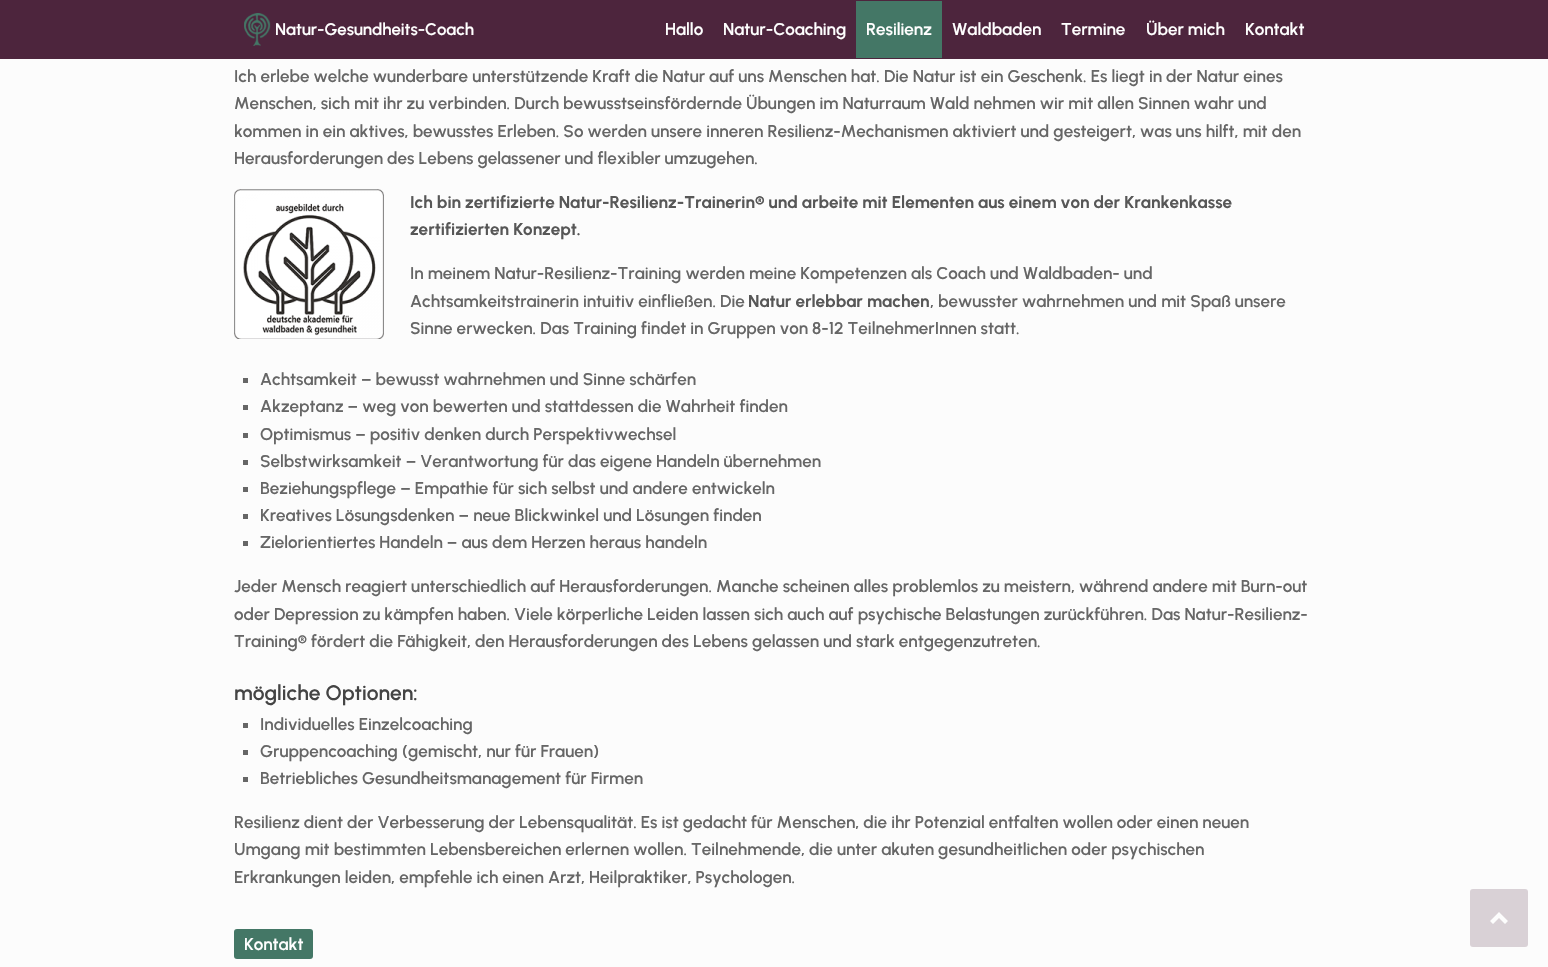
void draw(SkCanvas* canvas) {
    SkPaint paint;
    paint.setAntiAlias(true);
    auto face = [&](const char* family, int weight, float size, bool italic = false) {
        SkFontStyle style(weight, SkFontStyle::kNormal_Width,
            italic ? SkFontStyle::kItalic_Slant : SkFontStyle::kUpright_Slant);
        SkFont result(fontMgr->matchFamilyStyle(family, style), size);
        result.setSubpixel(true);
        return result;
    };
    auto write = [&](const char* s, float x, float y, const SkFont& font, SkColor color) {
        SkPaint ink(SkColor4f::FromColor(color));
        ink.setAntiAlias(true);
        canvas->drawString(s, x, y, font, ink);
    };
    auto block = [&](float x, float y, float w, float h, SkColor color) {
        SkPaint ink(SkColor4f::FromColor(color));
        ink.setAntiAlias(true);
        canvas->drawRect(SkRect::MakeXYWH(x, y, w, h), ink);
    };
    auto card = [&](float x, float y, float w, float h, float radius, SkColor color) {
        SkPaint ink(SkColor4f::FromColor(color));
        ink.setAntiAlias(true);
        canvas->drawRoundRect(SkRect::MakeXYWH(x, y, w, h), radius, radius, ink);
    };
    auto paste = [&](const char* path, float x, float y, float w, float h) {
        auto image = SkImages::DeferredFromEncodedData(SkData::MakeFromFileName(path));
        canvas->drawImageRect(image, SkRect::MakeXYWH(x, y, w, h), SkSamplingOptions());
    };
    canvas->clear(SkColorSetRGB(252, 252, 252));
    block(0, 0, 1548, 59, SkColorSetRGB(77, 37, 61));
    paste("pic1.png", 244, 13, 27, 33);
    auto kFont1 = face("Urbanist", 600, 16.75f);
    write("Natur-Gesundheits-Coach", 275, 35, kFont1, SK_ColorWHITE);
    auto kFont2 = face("Urbanist", 600, 17);
    write("Hallo", 665, 35, kFont2, SK_ColorWHITE);
    write("Natur-Coaching", 723, 35, kFont2, SK_ColorWHITE);
    block(856, 1, 86, 57, SkColorSetRGB(68, 119, 102));
    write("Resilienz", 866, 35, kFont2, SK_ColorWHITE);
    write("Waldbaden", 952, 35, kFont2, SK_ColorWHITE);
    write("Termine", 1061, 35, kFont2, SK_ColorWHITE);
    write("Über mich", 1146, 35, kFont2, SK_ColorWHITE);
    write("Kontakt", 1245, 35, kFont2, SK_ColorWHITE);
    write("Ich erlebe welche wunderbare unterstützende Kraft die Natur auf uns Menschen hat. Die Natur ist ein Geschenk. Es liegt in der Natur eines", 234, 82, kFont2, SkColorSetRGB(102, 102, 102));
    write("Menschen, sich mit ihr zu verbinden. Durch bewusstseinsfördernde Übungen im Naturraum Wald nehmen wir mit allen Sinnen wahr und", 234, 109, kFont2, SkColorSetRGB(102, 102, 102));
    write("kommen in ein aktives, bewusstes Erleben. So werden unsere inneren Resilienz-Mechanismen aktiviert und gesteigert, was uns hilft, mit den", 234, 137, kFont2, SkColorSetRGB(102, 102, 102));
    write("Herausforderungen des Lebens gelassener und flexibler umzugehen.", 234, 164, kFont2, SkColorSetRGB(102, 102, 102));
    paste("pic2.png", 234, 189, 150, 150);
    auto kFont3 = face("Urbanist", 700, 17);
    write("Ich bin zertifizierte Natur-Resilienz-Trainerin® und arbeite mit Elementen aus einem von der Krankenkasse", 410, 208, kFont3, SkColorSetRGB(87, 87, 87));
    write("zertifizierten Konzept.", 410, 235, kFont3, SkColorSetRGB(87, 87, 87));
    write("In meinem Natur-Resilienz-Training werden meine Kompetenzen als Coach und Waldbaden- und", 410, 279, kFont2, SkColorSetRGB(102, 102, 102));
    write("Achtsamkeitstrainerin intuitiv einfließen. Die", 410, 307, kFont2, SkColorSetRGB(102, 102, 102));
    write("Natur erlebbar machen", 748, 307, kFont3, SkColorSetRGB(87, 87, 87));
    write(", bewusster wahrnehmen und mit Spaß unsere", 930, 307, kFont2, SkColorSetRGB(102, 102, 102));
    write("Sinne erwecken. Das Training findet in Gruppen von 8-12 TeilnehmerInnen statt.", 410, 334, kFont2, SkColorSetRGB(102, 102, 102));
    block(243, 378, 5, 5, SkColorSetRGB(102, 102, 102));
    write("Achtsamkeit – bewusst wahrnehmen und Sinne schärfen", 260, 385, kFont2, SkColorSetRGB(102, 102, 102));
    block(243, 405, 5, 5, SkColorSetRGB(102, 102, 102));
    write("Akzeptanz – weg von bewerten und stattdessen die Wahrheit finden", 260, 412, kFont2, SkColorSetRGB(102, 102, 102));
    block(243, 433, 5, 5, SkColorSetRGB(102, 102, 102));
    write("Optimismus – positiv denken durch Perspektivwechsel", 260, 440, kFont2, SkColorSetRGB(102, 102, 102));
    block(243, 460, 5, 5, SkColorSetRGB(102, 102, 102));
    write("Selbstwirksamkeit – Verantwortung für das eigene Handeln übernehmen", 260, 467, kFont2, SkColorSetRGB(102, 102, 102));
    block(243, 487, 5, 5, SkColorSetRGB(102, 102, 102));
    write("Beziehungspflege – Empathie für sich selbst und andere entwickeln", 260, 494, kFont2, SkColorSetRGB(102, 102, 102));
    block(243, 514, 5, 5, SkColorSetRGB(102, 102, 102));
    write("Kreatives Lösungsdenken – neue Blickwinkel und Lösungen finden", 260, 521, kFont2, SkColorSetRGB(102, 102, 102));
    block(243, 541, 5, 5, SkColorSetRGB(102, 102, 102));
    write("Zielorientiertes Handeln – aus dem Herzen heraus handeln", 260, 548, kFont2, SkColorSetRGB(102, 102, 102));
    write("Jeder Mensch reagiert unterschiedlich auf Herausforderungen. Manche scheinen alles problemlos zu meistern, während andere mit Burn-out", 234, 592, kFont2, SkColorSetRGB(102, 102, 102));
    write("oder Depression zu kämpfen haben. Viele körperliche Leiden lassen sich auch auf psychische Belastungen zurückführen. Das Natur-Resilienz-", 234, 620, kFont2, SkColorSetRGB(102, 102, 102));
    write("Training® fördert die Fähigkeit, den Herausforderungen des Lebens gelassen und stark entgegenzutreten.", 234, 647, kFont2, SkColorSetRGB(102, 102, 102));
    auto kFont4 = face("Urbanist", 600, 21);
    write("mögliche Optionen:", 234, 700, kFont4, SkColorSetRGB(68, 68, 68));
    block(243, 723, 5, 5, SkColorSetRGB(102, 102, 102));
    write("Individuelles Einzelcoaching", 260, 730, kFont2, SkColorSetRGB(102, 102, 102));
    block(243, 750, 5, 5, SkColorSetRGB(102, 102, 102));
    write("Gruppencoaching (gemischt, nur für Frauen)", 260, 757, kFont2, SkColorSetRGB(102, 102, 102));
    block(243, 777, 5, 5, SkColorSetRGB(102, 102, 102));
    write("Betriebliches Gesundheitsmanagement für Firmen", 260, 784, kFont2, SkColorSetRGB(102, 102, 102));
    write("Resilienz dient der Verbesserung der Lebensqualität. Es ist gedacht für Menschen, die ihr Potenzial entfalten wollen oder einen neuen", 234, 828, kFont2, SkColorSetRGB(102, 102, 102));
    write("Umgang mit bestimmten Lebensbereichen erlernen wollen. Teilnehmende, die unter akuten gesundheitlichen oder psychischen", 234, 855, kFont2, SkColorSetRGB(102, 102, 102));
    write("Erkrankungen leiden, empfehle ich einen Arzt, Heilpraktiker, Psychologen.", 234, 883, kFont2, SkColorSetRGB(102, 102, 102));
    card(234, 929, 79, 30, 3, SkColorSetRGB(68, 119, 102));
    write("Kontakt", 244, 950, kFont2, SK_ColorWHITE);
    card(1470, 889, 58, 58, 3, SkColorSetRGB(217, 209, 214));
    paint.setColor(SkColorSetRGB(253, 253, 253));
    canvas->drawPath(SkPathBuilder().moveTo(1508, 921).lineTo(1499, 912).lineTo(1490, 921).lineTo(1493, 924).lineTo(1499, 918).lineTo(1505, 924).close().detach(), paint);
}
